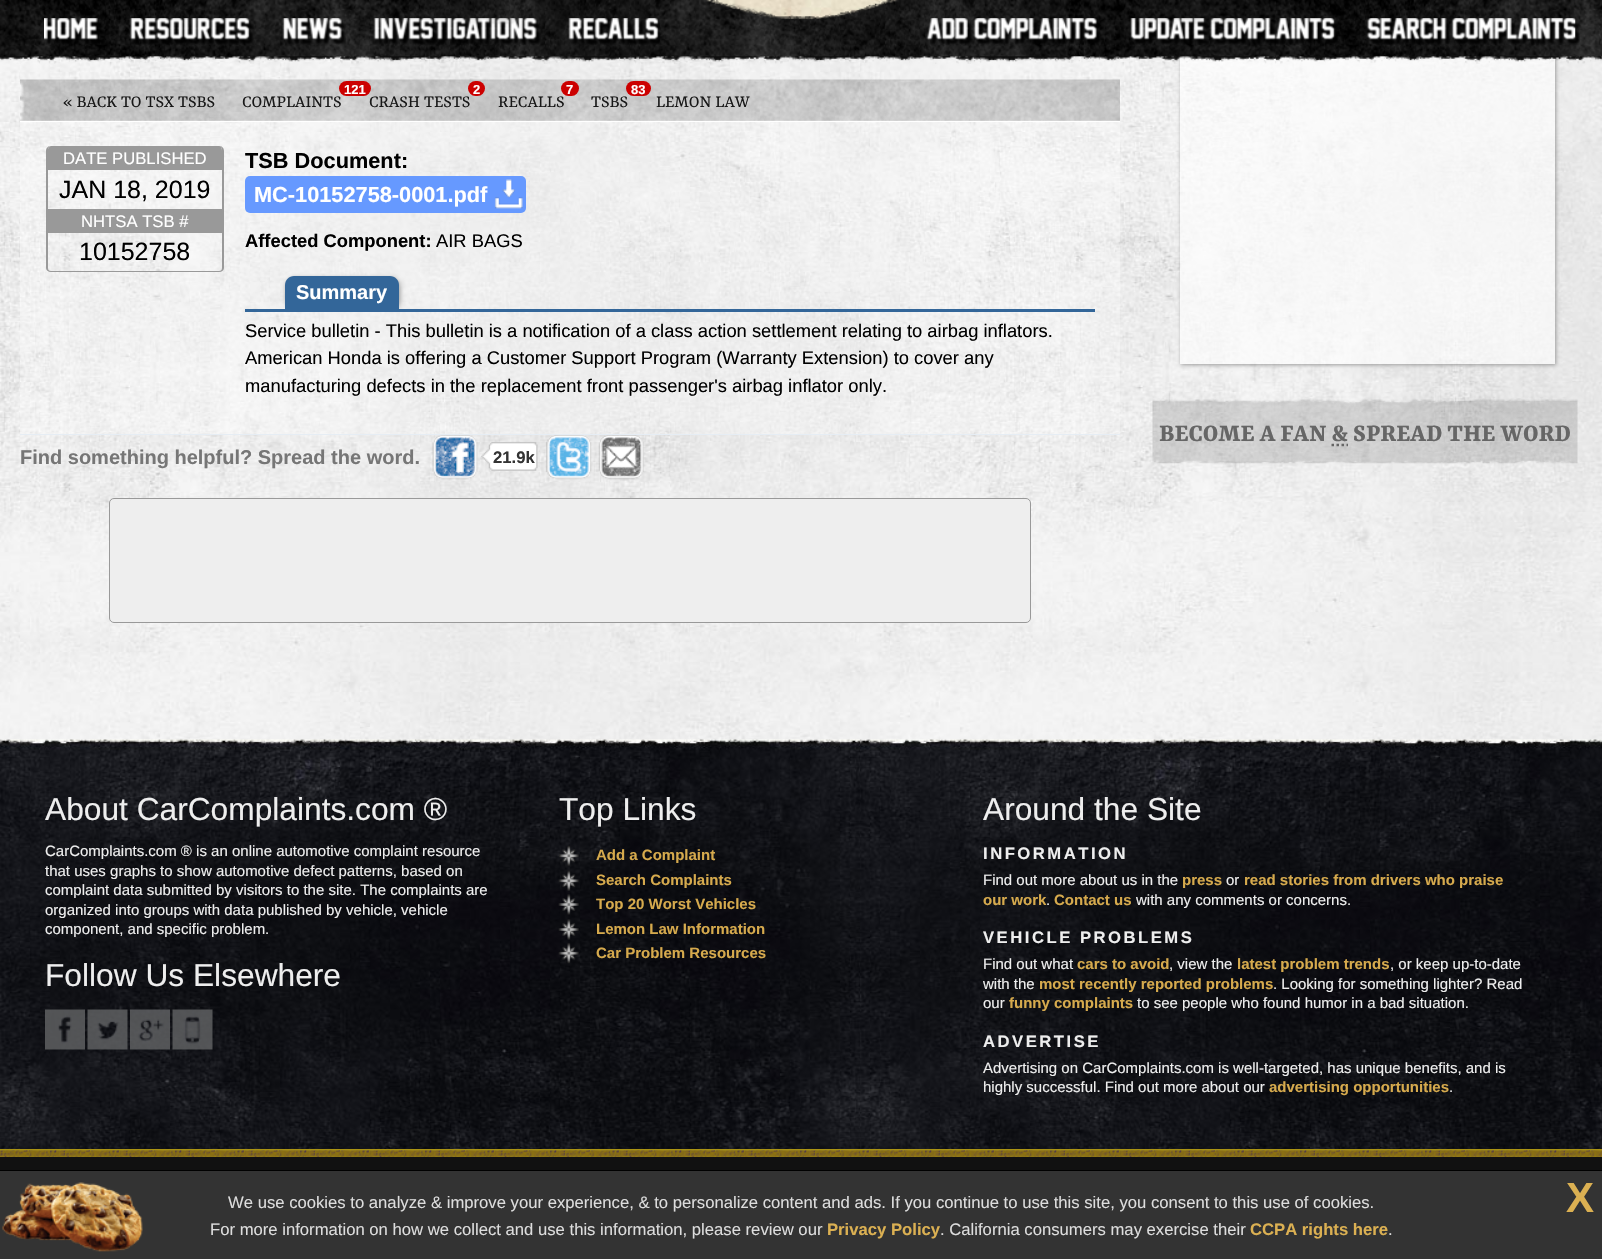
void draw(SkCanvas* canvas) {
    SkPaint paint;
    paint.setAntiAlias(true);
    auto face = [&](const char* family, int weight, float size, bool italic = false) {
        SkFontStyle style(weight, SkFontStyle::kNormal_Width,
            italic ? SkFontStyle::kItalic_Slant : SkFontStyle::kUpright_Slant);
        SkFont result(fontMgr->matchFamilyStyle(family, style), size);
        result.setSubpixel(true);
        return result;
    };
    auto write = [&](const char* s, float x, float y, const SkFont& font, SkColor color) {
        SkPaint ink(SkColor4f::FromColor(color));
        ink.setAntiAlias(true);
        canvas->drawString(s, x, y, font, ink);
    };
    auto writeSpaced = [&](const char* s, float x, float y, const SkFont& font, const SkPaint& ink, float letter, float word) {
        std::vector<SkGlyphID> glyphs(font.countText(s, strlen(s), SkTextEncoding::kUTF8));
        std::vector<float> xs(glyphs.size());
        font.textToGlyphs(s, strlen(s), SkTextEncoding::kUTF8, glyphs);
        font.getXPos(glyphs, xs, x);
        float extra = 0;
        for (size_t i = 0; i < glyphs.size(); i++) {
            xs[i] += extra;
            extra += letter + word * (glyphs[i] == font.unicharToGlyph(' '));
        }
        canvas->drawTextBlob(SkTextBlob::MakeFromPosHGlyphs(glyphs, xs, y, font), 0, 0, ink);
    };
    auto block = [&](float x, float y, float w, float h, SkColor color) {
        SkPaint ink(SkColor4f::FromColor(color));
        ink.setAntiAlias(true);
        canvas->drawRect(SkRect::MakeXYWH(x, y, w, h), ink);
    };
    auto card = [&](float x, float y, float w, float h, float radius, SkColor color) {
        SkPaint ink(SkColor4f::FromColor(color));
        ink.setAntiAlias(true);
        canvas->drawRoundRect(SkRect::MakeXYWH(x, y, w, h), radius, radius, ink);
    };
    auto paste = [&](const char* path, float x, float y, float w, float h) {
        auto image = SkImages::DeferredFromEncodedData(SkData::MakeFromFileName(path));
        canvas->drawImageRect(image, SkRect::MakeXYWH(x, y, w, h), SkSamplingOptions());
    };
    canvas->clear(SK_ColorWHITE);
    paste("pic1.png", 0, 36, 1602, 704);
    paste("pic2.png", 648, 0, 251, 37);
    canvas->save();
    canvas->clipPath(SkPathBuilder(SkPathFillType::kEvenOdd).moveTo(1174, 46).lineTo(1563, 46).lineTo(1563, 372).lineTo(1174, 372).close().moveTo(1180, 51).lineTo(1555, 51).lineTo(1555, 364).lineTo(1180, 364).close().detach(), true);
    paint.setColor(SkColorSetRGB(153, 153, 153));
    paint.setMaskFilter(SkMaskFilter::MakeBlur(kNormal_SkBlurStyle, 2));
    canvas->drawRect(SkRect::MakeXYWH(1181, 53, 375, 312), paint);
    paint.setMaskFilter(nullptr);
    canvas->restore();
    block(1180, 56, 375, 308, SkColorSetARGB(153, 255, 255, 255));
    paste("pic3.png", 0, 0, 1602, 64);
    paste("pic4.png", 44, 18, 56, 27);
    paste("pic5.png", 129, 18, 125, 27);
    paste("pic6.png", 282, 18, 64, 28);
    paste("pic7.png", 373, 18, 168, 27);
    paste("pic8.png", 568, 18, 93, 27);
    paste("pic9.png", 926, 18, 175, 28);
    paste("pic10.png", 1130, 18, 209, 27);
    paste("pic11.png", 1366, 18, 214, 27);
    paste("pic12.png", 20, 79, 1100, 42);
    auto kFont1 = face("Yrsa", 400, 18.35f);
    write("« BACK TO TSX TSBS", 63, 107, kFont1, SkColorSetRGB(24, 24, 24));
    card(339, 81, 32, 15, 7.5f, SkColorSetRGB(204, 0, 0));
    auto kFont2 = face("Liberation Sans", 700, 13);
    write("121", 344, 94, kFont2, SK_ColorWHITE);
    write("COMPLAINTS", 242, 107, kFont1, SkColorSetRGB(24, 24, 24));
    card(468, 81, 17, 15, 7.5f, SkColorSetRGB(204, 0, 0));
    write("2", 473, 94, kFont2, SK_ColorWHITE);
    write("CRASH TESTS", 369, 107, kFont1, SkColorSetRGB(24, 24, 24));
    card(561, 81, 18, 15, 7.5f, SkColorSetRGB(204, 0, 0));
    write("7", 566, 94, kFont2, SK_ColorWHITE);
    write("RECALLS", 498, 107, kFont1, SkColorSetRGB(24, 24, 24));
    card(626, 81, 25, 15, 7.5f, SkColorSetRGB(204, 0, 0));
    write("83", 631, 94, kFont2, SK_ColorWHITE);
    write("TSBS", 591, 107, kFont1, SkColorSetRGB(24, 24, 24));
    write("LEMON LAW", 656, 107, kFont1, SkColorSetRGB(24, 24, 24));
    block(20, 122, 1100, 312, SkColorSetARGB(77, 255, 255, 255));
    canvas->drawPath(SkPathBuilder(SkPathFillType::kEvenOdd).moveTo(51, 146).lineTo(219, 146).cubicTo(222, 146, 224, 148, 224, 151).lineTo(224, 268).cubicTo(224, 270, 222, 272, 219, 272).lineTo(51, 272).cubicTo(48, 272, 46, 270, 46, 268).lineTo(46, 151).cubicTo(46, 148, 48, 146, 51, 146).close().moveTo(51, 146).lineTo(219, 146).cubicTo(221, 146, 222, 148, 222, 151).lineTo(222, 268).cubicTo(222, 270, 221, 271, 219, 271).lineTo(51, 271).cubicTo(49, 271, 48, 270, 48, 268).lineTo(48, 151).cubicTo(48, 148, 49, 146, 51, 146).close().detach(), paint);
    canvas->drawPath(SkPathBuilder().moveTo(51, 146).lineTo(219, 146).cubicTo(221, 146, 222, 148, 222, 151).lineTo(222, 170).lineTo(48, 170).lineTo(48, 149).cubicTo(49, 147, 50, 146, 51, 146).close().detach(), paint);
    auto kFont3 = face("Liberation Sans", 400, 16.67f);
    write("DATE PUBLISHED", 63, 164, kFont3, SK_ColorWHITE);
    auto kFont4 = face("Liberation Sans", 400, 25);
    write("JAN 18, 2019", 59, 198, kFont4, SK_ColorBLACK);
    block(48, 209, 174, 24, SkColorSetRGB(153, 153, 153));
    write("NHTSA TSB #", 81, 227, kFont3, SK_ColorWHITE);
    write("10152758", 79, 260, kFont4, SK_ColorBLACK);
    block(20, 121, 1100, 1, SK_ColorWHITE);
    block(20, 434, 1100, 1, SkColorSetRGB(230, 237, 244));
    auto kFont5 = face("Liberation Sans", 700, 21.75f);
    write("TSB Document:", 245, 168, kFont5, SK_ColorBLACK);
    card(245, 176, 281, 37, 5, SkColorSetRGB(102, 153, 255));
    paste("pic13.png", 494, 179, 29, 30);
    write("MC-10152758-0001.pdf", 254, 202, kFont5, SK_ColorWHITE);
    auto kFont6 = face("Liberation Sans", 700, 18.35f);
    write("Affected Component:", 245, 247, kFont6, SK_ColorBLACK);
    auto kFont7 = face("Liberation Sans", 400, 18.35f);
    write("AIR BAGS", 436, 247, kFont7, SK_ColorBLACK);
    block(245, 309, 850, 3, SkColorSetRGB(51, 102, 153));
    canvas->save();
    canvas->clipRect(SkRect::MakeXYWH(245, 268, 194, 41));
    paint.setMaskFilter(SkMaskFilter::MakeBlur(kNormal_SkBlurStyle, 2.5f));
    canvas->drawRoundRect(SkRect::MakeXYWH(286, 278, 114, 32), 9, 9, paint);
    paint.setMaskFilter(nullptr);
    canvas->restore();
    paint.setColor(SkColorSetRGB(51, 102, 153));
    canvas->drawPath(SkPathBuilder().moveTo(294, 276).lineTo(390, 276).cubicTo(395, 276, 399, 280, 399, 285).lineTo(399, 309).lineTo(285, 309).lineTo(285, 285).cubicTo(285, 280, 289, 276, 294, 276).close().detach(), paint);
    auto kFont8 = face("Liberation Sans", 700, 20);
    write("Summary", 296, 299, kFont8, SK_ColorWHITE);
    write("Service bulletin - This bulletin is a notification of a class action settlement relating to airbag inflators.", 245, 337, kFont7, SK_ColorBLACK);
    write("American Honda is offering a Customer Support Program (Warranty Extension) to cover any", 245, 364, kFont7, SK_ColorBLACK);
    write("manufacturing defects in the replacement front passenger's airbag inflator only.", 245, 392, kFont7, SK_ColorBLACK);
    write("Find something helpful? Spread the word.", 20, 464, kFont8, SkColorSetRGB(118, 118, 118));
    paste("pic14.png", 432, 435, 106, 45);
    auto kFont9 = face("Liberation Sans", 700, 16.67f);
    write("21.9k", 493, 463, kFont9, SkColorSetRGB(51, 51, 51));
    paste("pic15.png", 546, 435, 46, 45);
    paste("pic16.png", 598, 435, 46, 45);
    paint.setColor(SkColorSetRGB(238, 238, 238));
    canvas->drawRoundRect(SkRect::MakeXYWH(109.5f, 498.5f, 921, 124), 4.5f, 4.5f, paint);
    paint.setStyle(SkPaint::kStroke_Style);
    paint.setStrokeWidth(1);
    paint.setColor(SkColorSetRGB(153, 153, 153));
    canvas->drawRoundRect(SkRect::MakeXYWH(109.5f, 498.5f, 921, 124), 4.5f, 4.5f, paint);
    paste("pic17.png", 1152, 397, 426, 67);
    auto kFont10 = face("Yrsa", 700, 26.7f);
    write("BECOME A FAN & SPREAD THE WORD", 1159, 441, kFont10, SkColorSetRGB(102, 102, 102));
    paint.setStrokeWidth(2.5f);
    paint.setColor(SkColorSetRGB(102, 102, 102));
    canvas->drawPath(SkPathBuilder().moveTo(1331.5f, 445).lineTo(1334, 445).moveTo(1336.5f, 445).lineTo(1339, 445).moveTo(1341.5f, 445).lineTo(1344, 445).moveTo(1346.5f, 445).lineTo(1348, 445).detach(), paint);
    paste("pic18.png", 0, 739, 1602, 410);
    auto kFont11 = face("Liberation Sans", 400, 31.7f);
    write("About CarComplaints.com ®", 45, 820, kFont11, SkColorSetRGB(238, 238, 238));
    auto kFont12 = face("Liberation Sans", 400, 15);
    write("CarComplaints.com ® is an online automotive complaint resource", 45, 856, kFont12, SkColorSetRGB(238, 238, 238));
    write("that uses graphs to show automotive defect patterns, based on", 45, 876, kFont12, SkColorSetRGB(238, 238, 238));
    write("complaint data submitted by visitors to the site. The complaints are", 45, 895, kFont12, SkColorSetRGB(238, 238, 238));
    write("organized into groups with data published by vehicle, vehicle", 45, 915, kFont12, SkColorSetRGB(238, 238, 238));
    write("component, and specific problem.", 45, 934, kFont12, SkColorSetRGB(238, 238, 238));
    write("Follow Us Elsewhere", 45, 986, kFont11, SkColorSetRGB(238, 238, 238));
    paste("pic19.png", 45, 1009, 40, 41);
    paste("pic20.png", 87, 1009, 41, 41);
    paste("pic21.png", 130, 1009, 40, 41);
    paste("pic22.png", 172, 1009, 41, 41);
    write("Top Links", 559, 820, kFont11, SkColorSetRGB(238, 238, 238));
    paste("pic23.png", 559, 845, 20, 21);
    auto kFont13 = face("Liberation Sans", 700, 15);
    write("Add a Complaint", 596, 860, kFont13, SkColorSetRGB(214, 170, 77));
    paste("pic24.png", 558, 870, 21, 21);
    write("Search Complaints", 596, 885, kFont13, SkColorSetRGB(214, 170, 77));
    paste("pic25.png", 558, 894, 21, 21);
    write("Top 20 Worst Vehicles", 596, 909, kFont13, SkColorSetRGB(214, 170, 77));
    paste("pic26.png", 558, 919, 21, 21);
    write("Lemon Law Information", 596, 934, kFont13, SkColorSetRGB(214, 170, 77));
    paste("pic27.png", 558, 943, 21, 21);
    write("Car Problem Resources", 596, 958, kFont13, SkColorSetRGB(214, 170, 77));
    write("Around the Site", 983, 820, kFont11, SkColorSetRGB(238, 238, 238));
    paint.setStyle(SkPaint::kFill_Style);
    paint.setColor(SkColorSetRGB(238, 238, 238));
    writeSpaced("INFORMATION", 983, 859, kFont9, paint, 2.5f, 0);
    write("Find out more about us in the", 983, 885, kFont12, SkColorSetRGB(238, 238, 238));
    write("press", 1182, 885, kFont13, SkColorSetRGB(214, 170, 77));
    write("or", 1226, 885, kFont12, SkColorSetRGB(238, 238, 238));
    write("read stories from drivers who praise", 1244, 885, kFont13, SkColorSetRGB(214, 170, 77));
    write("our work", 983, 905, kFont13, SkColorSetRGB(214, 170, 77));
    write(".", 1046, 905, kFont12, SkColorSetRGB(238, 238, 238));
    write("Contact us", 1054, 905, kFont13, SkColorSetRGB(214, 170, 77));
    write("with any comments or concerns.", 1136, 905, kFont12, SkColorSetRGB(238, 238, 238));
    writeSpaced("VEHICLE PROBLEMS", 983, 943, kFont9, paint, 2.5f, 0);
    write("Find out what", 983, 969, kFont12, SkColorSetRGB(238, 238, 238));
    write("cars to avoid", 1077, 969, kFont13, SkColorSetRGB(214, 170, 77));
    write(", view the", 1169, 969, kFont12, SkColorSetRGB(238, 238, 238));
    write("latest problem trends", 1237, 969, kFont13, SkColorSetRGB(214, 170, 77));
    write(", or keep up-to-date", 1390, 969, kFont12, SkColorSetRGB(238, 238, 238));
    write("with the", 983, 989, kFont12, SkColorSetRGB(238, 238, 238));
    write("most recently reported problems", 1039, 989, kFont13, SkColorSetRGB(214, 170, 77));
    write(". Looking for something lighter? Read", 1273, 989, kFont12, SkColorSetRGB(238, 238, 238));
    write("our", 983, 1008, kFont12, SkColorSetRGB(238, 238, 238));
    write("funny complaints", 1009, 1008, kFont13, SkColorSetRGB(214, 170, 77));
    write("to see people who found humor in a bad situation.", 1137, 1008, kFont12, SkColorSetRGB(238, 238, 238));
    writeSpaced("ADVERTISE", 983, 1047, kFont9, paint, 2.5f, 0);
    write("Advertising on CarComplaints.com is well-targeted, has unique benefits, and is", 983, 1073, kFont12, SkColorSetRGB(238, 238, 238));
    write("highly successful. Find out more about our", 983, 1092, kFont12, SkColorSetRGB(238, 238, 238));
    write("advertising opportunities", 1269, 1092, kFont13, SkColorSetRGB(214, 170, 77));
    write(".", 1449, 1092, kFont12, SkColorSetRGB(238, 238, 238));
    block(0, 1157, 1602, 13, SkColorSetRGB(17, 17, 17));
    paste("pic28.png", 0, 1150, 1602, 7);
    block(0, 1149, 1602, 1, SkColorSetRGB(170, 147, 19));
    block(0, 1171, 1602, 88, SkColorSetRGB(51, 51, 51));
    paste("pic29.png", 2, 1182, 141, 70);
    block(0, 1170, 1602, 1, SK_ColorBLACK);
    write("We use cookies to analyze & improve your experience, & to personalize content and ads. If you continue to use this site, you consent to this use of cookies.", 228, 1208, kFont3, SkColorSetRGB(221, 221, 221));
    auto kFont14 = face("Liberation Sans", 700, 42);
    write("X", 1566, 1212, kFont14, SkColorSetRGB(219, 176, 82));
    write("For more information on how we collect and use this information, please review our", 210, 1235, kFont3, SkColorSetRGB(221, 221, 221));
    write("Privacy Policy", 827, 1235, kFont9, SkColorSetRGB(219, 176, 82));
    write(". California consumers may exercise their", 940, 1235, kFont3, SkColorSetRGB(221, 221, 221));
    write("CCPA rights here", 1250, 1235, kFont9, SkColorSetRGB(219, 176, 82));
    write(".", 1388, 1235, kFont3, SkColorSetRGB(221, 221, 221));
}
